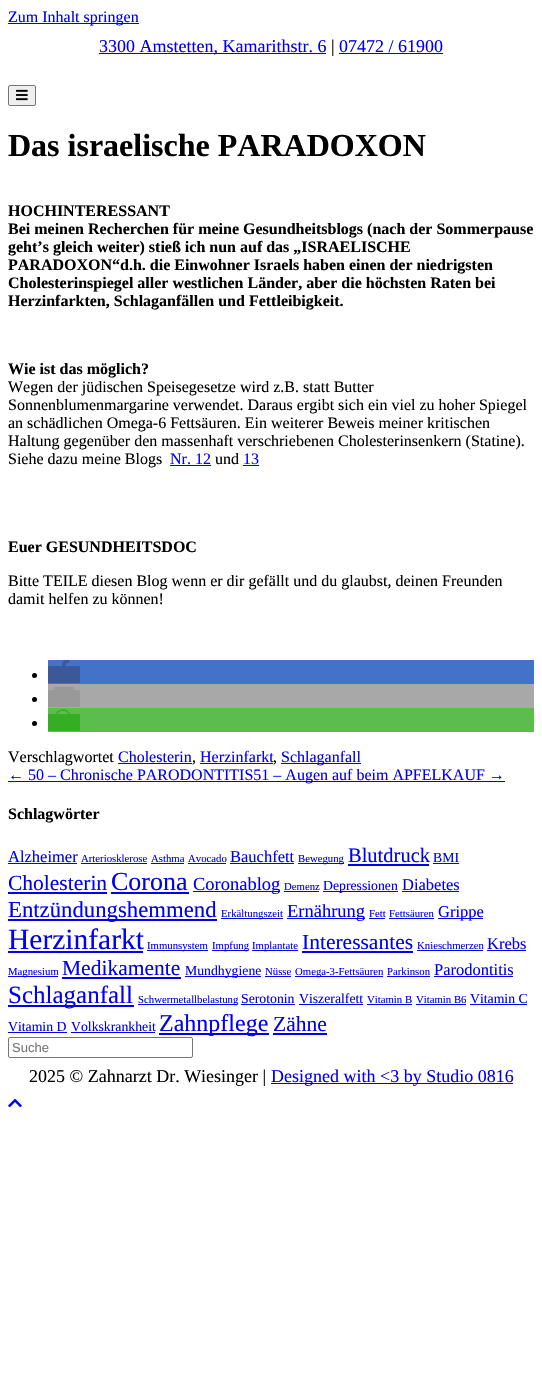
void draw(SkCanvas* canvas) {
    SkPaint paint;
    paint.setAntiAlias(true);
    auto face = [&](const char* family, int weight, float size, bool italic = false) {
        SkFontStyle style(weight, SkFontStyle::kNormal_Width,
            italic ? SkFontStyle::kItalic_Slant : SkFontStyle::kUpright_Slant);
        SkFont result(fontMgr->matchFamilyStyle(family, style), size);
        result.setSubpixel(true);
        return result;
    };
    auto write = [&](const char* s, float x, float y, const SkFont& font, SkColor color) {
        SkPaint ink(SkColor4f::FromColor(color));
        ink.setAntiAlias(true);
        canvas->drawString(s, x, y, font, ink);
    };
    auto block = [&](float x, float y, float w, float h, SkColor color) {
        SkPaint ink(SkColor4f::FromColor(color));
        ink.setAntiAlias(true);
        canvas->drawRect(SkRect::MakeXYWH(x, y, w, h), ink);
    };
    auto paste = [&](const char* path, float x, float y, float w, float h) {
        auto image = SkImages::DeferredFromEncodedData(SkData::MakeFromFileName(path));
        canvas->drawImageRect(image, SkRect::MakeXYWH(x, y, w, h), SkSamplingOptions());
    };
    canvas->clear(SK_ColorWHITE);
    block(8, 23, 131, 1, SkColorSetRGB(0, 0, 238));
    auto kFont1 = face("Liberation Serif", 400, 16);
    write("Zum Inhalt springen", 8, 22, kFont1, SkColorSetRGB(0, 0, 238));
    block(99, 53, 227, 1, SkColorSetRGB(0, 0, 238));
    auto kFont2 = face("Liberation Serif", 400, 18);
    write("3300 Amstetten, Kamarithstr. 6", 99, 52, kFont2, SkColorSetRGB(0, 0, 238));
    write("|", 331, 52, kFont2, SK_ColorBLACK);
    write("07472 / 61900", 339, 52, kFont2, SkColorSetRGB(0, 0, 238));
    block(339, 53, 104, 1, SkColorSetRGB(0, 0, 238));
    paint.setColor(SkColorSetRGB(239, 239, 239));
    canvas->drawRoundRect(SkRect::MakeXYWH(8.5f, 85.5f, 27, 20), 1.5f, 1.5f, paint);
    paint.setStyle(SkPaint::kStroke_Style);
    paint.setStrokeWidth(1);
    paint.setColor(SkColorSetRGB(118, 118, 118));
    canvas->drawRoundRect(SkRect::MakeXYWH(8.5f, 85.5f, 27, 20), 1.5f, 1.5f, paint);
    paste("pic1.png", 16, 89, 12, 12);
    auto kFont3 = face("Liberation Serif", 700, 32);
    write("Das israelische PARADOXON", 8, 156, kFont3, SK_ColorBLACK);
    auto kFont4 = face("Liberation Serif", 700, 16);
    write("HOCHINTERESSANT", 8, 216, kFont4, SK_ColorBLACK);
    write("Bei meinen Recherchen für meine Gesundheitsblogs (nach der Sommerpause", 8, 234, kFont4, SK_ColorBLACK);
    write("geht’s gleich weiter) stieß ich nun auf das „ISRAELISCHE", 8, 252, kFont4, SK_ColorBLACK);
    write("PARADOXON“d.h. die Einwohner Israels haben einen der niedrigsten", 8, 270, kFont4, SK_ColorBLACK);
    write("Cholesterinspiegel aller westlichen Länder, aber die höchsten Raten bei", 8, 288, kFont4, SK_ColorBLACK);
    write("Herzinfarkten, Schlaganfällen und Fettleibigkeit.", 8, 306, kFont4, SK_ColorBLACK);
    write("Wie ist das möglich?", 8, 374, kFont4, SK_ColorBLACK);
    write("Wegen der jüdischen Speisegesetze wird z.B. statt Butter", 8, 392, kFont1, SK_ColorBLACK);
    write("Sonnenblumenmargarine verwendet. Daraus ergibt sich ein viel zu hoher Spiegel", 8, 410, kFont1, SK_ColorBLACK);
    write("an schädlichen Omega-6 Fettsäuren. Ein weiterer Beweis meiner kritischen", 8, 428, kFont1, SK_ColorBLACK);
    write("Haltung gegenüber den massenhaft verschriebenen Cholesterinsenkern (Statine).", 8, 446, kFont1, SK_ColorBLACK);
    write("Siehe dazu meine Blogs", 8, 464, kFont1, SK_ColorBLACK);
    write("Nr. 12", 170, 464, kFont1, SkColorSetRGB(0, 0, 238));
    block(170, 465, 41, 1, SkColorSetRGB(0, 0, 238));
    write("und", 215, 464, kFont1, SK_ColorBLACK);
    write("13", 243, 464, kFont1, SkColorSetRGB(0, 0, 238));
    block(243, 465, 16, 1, SkColorSetRGB(0, 0, 238));
    write("Euer GESUNDHEITSDOC", 8, 552, kFont4, SK_ColorBLACK);
    write("Bitte TEILE diesen Blog wenn er dir gefällt und du glaubst, deinen Freunden", 8, 586, kFont1, SK_ColorBLACK);
    write("damit helfen zu können!", 8, 604, kFont1, SK_ColorBLACK);
    block(48, 660, 486, 24, SkColorSetRGB(66, 115, 200));
    paste("pic2.png", 62, 660, 7, 6);
    paint.setStyle(SkPaint::kFill_Style);
    paint.setColor(SK_ColorBLACK);
    canvas->drawCircle(34.5f, 675.5f, 2.5f, paint);
    block(48, 666, 32, 17, SkColorSetRGB(59, 89, 152));
    block(48, 684, 486, 24, SkColorSetRGB(168, 168, 168));
    block(54, 687, 20, 3, SkColorSetRGB(153, 153, 153));
    canvas->drawCircle(34.5f, 699.5f, 2.5f, paint);
    block(48, 690, 32, 17, SkColorSetRGB(153, 153, 153));
    block(48, 708, 486, 24, SkColorSetRGB(92, 190, 74));
    paste("pic3.png", 55, 709, 15, 5);
    canvas->drawCircle(34.5f, 723.5f, 2.5f, paint);
    block(48, 714, 32, 17, SkColorSetRGB(52, 175, 35));
    write("Verschlagwortet", 8, 762, kFont1, SK_ColorBLACK);
    write("Cholesterin", 118, 762, kFont1, SkColorSetRGB(0, 0, 238));
    block(118, 763, 74, 1, SkColorSetRGB(0, 0, 238));
    write(",", 192, 762, kFont1, SK_ColorBLACK);
    write("Herzinfarkt", 200, 762, kFont1, SkColorSetRGB(0, 0, 238));
    block(200, 763, 73, 1, SkColorSetRGB(0, 0, 238));
    write(",", 273, 762, kFont1, SK_ColorBLACK);
    block(281, 763, 80, 1, SkColorSetRGB(0, 0, 238));
    write("Schlaganfall", 281, 762, kFont1, SkColorSetRGB(0, 0, 238));
    block(8, 781, 497, 1, SkColorSetRGB(0, 0, 238));
    write("← 50 – Chronische PARODONTITIS51 – Augen auf beim APFELKAUF →", 8, 780, kFont1, SkColorSetRGB(0, 0, 238));
    write("Schlagwörter", 8, 819, kFont4, SK_ColorBLACK);
    auto kFont5 = face("Liberation Serif", 400, 16.5f);
    write("Alzheimer", 8, 862, kFont5, SkColorSetRGB(0, 0, 238));
    block(8, 863, 69, 1, SkColorSetRGB(0, 0, 238));
    auto kFont6 = face("Liberation Serif", 400, 10.75f);
    write("Arteriosklerose", 81, 862, kFont6, SkColorSetRGB(0, 0, 238));
    block(81, 863, 66, 1, SkColorSetRGB(0, 0, 238));
    write("Asthma", 151, 862, kFont6, SkColorSetRGB(0, 0, 238));
    block(151, 863, 33, 1, SkColorSetRGB(0, 0, 238));
    write("Avocado", 188, 862, kFont6, SkColorSetRGB(0, 0, 238));
    block(188, 863, 38, 1, SkColorSetRGB(0, 0, 238));
    write("Bauchfett", 230, 862, kFont5, SkColorSetRGB(0, 0, 238));
    block(230, 863, 64, 1, SkColorSetRGB(0, 0, 238));
    block(298, 863, 46, 1, SkColorSetRGB(0, 0, 238));
    write("Bewegung", 298, 862, kFont6, SkColorSetRGB(0, 0, 238));
    auto kFont7 = face("Liberation Serif", 400, 20.5f);
    write("Blutdruck", 348, 862, kFont7, SkColorSetRGB(0, 0, 238));
    block(348, 864, 81, 2, SkColorSetRGB(0, 0, 238));
    auto kFont8 = face("Liberation Serif", 400, 13.75f);
    write("BMI", 433, 862, kFont8, SkColorSetRGB(0, 0, 238));
    block(433, 863, 26, 1, SkColorSetRGB(0, 0, 238));
    auto kFont9 = face("Liberation Serif", 400, 21.5f);
    write("Cholesterin", 8, 890, kFont9, SkColorSetRGB(0, 0, 238));
    block(8, 892, 99, 2, SkColorSetRGB(0, 0, 238));
    auto kFont10 = face("Liberation Serif", 400, 26);
    write("Corona", 111, 890, kFont10, SkColorSetRGB(0, 0, 238));
    block(111, 892, 78, 2, SkColorSetRGB(0, 0, 238));
    block(193, 891, 87, 1, SkColorSetRGB(0, 0, 238));
    auto kFont11 = face("Liberation Serif", 400, 18.5f);
    write("Coronablog", 193, 890, kFont11, SkColorSetRGB(0, 0, 238));
    write("Demenz", 284, 890, kFont6, SkColorSetRGB(0, 0, 238));
    block(284, 891, 35, 1, SkColorSetRGB(0, 0, 238));
    block(323, 891, 75, 1, SkColorSetRGB(0, 0, 238));
    write("Depressionen", 323, 890, kFont8, SkColorSetRGB(0, 0, 238));
    write("Diabetes", 402, 890, kFont5, SkColorSetRGB(0, 0, 238));
    block(402, 891, 57, 1, SkColorSetRGB(0, 0, 238));
    block(8, 919, 209, 2, SkColorSetRGB(0, 0, 238));
    auto kFont12 = face("Liberation Serif", 400, 22.75f);
    write("Entzündungshemmend", 8, 917, kFont12, SkColorSetRGB(0, 0, 238));
    block(221, 918, 62, 1, SkColorSetRGB(0, 0, 238));
    write("Erkältungszeit", 221, 917, kFont6, SkColorSetRGB(0, 0, 238));
    block(287, 918, 78, 1, SkColorSetRGB(0, 0, 238));
    write("Ernährung", 287, 917, kFont11, SkColorSetRGB(0, 0, 238));
    write("Fett", 369, 917, kFont6, SkColorSetRGB(0, 0, 238));
    block(369, 918, 16, 1, SkColorSetRGB(0, 0, 238));
    write("Fettsäuren", 389, 917, kFont6, SkColorSetRGB(0, 0, 238));
    block(389, 918, 45, 1, SkColorSetRGB(0, 0, 238));
    block(438, 918, 45, 1, SkColorSetRGB(0, 0, 238));
    write("Grippe", 438, 917, kFont5, SkColorSetRGB(0, 0, 238));
    auto kFont13 = face("Liberation Serif", 400, 29.5f);
    write("Herzinfarkt", 8, 949, kFont13, SkColorSetRGB(0, 0, 238));
    block(8, 951, 135, 2, SkColorSetRGB(0, 0, 238));
    block(147, 950, 61, 1, SkColorSetRGB(0, 0, 238));
    write("Immunsystem", 147, 949, kFont6, SkColorSetRGB(0, 0, 238));
    block(212, 950, 36, 1, SkColorSetRGB(0, 0, 238));
    write("Impfung", 212, 949, kFont6, SkColorSetRGB(0, 0, 238));
    block(252, 950, 46, 1, SkColorSetRGB(0, 0, 238));
    write("Implantate", 252, 949, kFont6, SkColorSetRGB(0, 0, 238));
    write("Interessantes", 302, 949, kFont9, SkColorSetRGB(0, 0, 238));
    block(302, 951, 111, 2, SkColorSetRGB(0, 0, 238));
    write("Knieschmerzen", 417, 949, kFont6, SkColorSetRGB(0, 0, 238));
    block(417, 950, 66, 1, SkColorSetRGB(0, 0, 238));
    write("Krebs", 487, 949, kFont5, SkColorSetRGB(0, 0, 238));
    block(487, 950, 39, 1, SkColorSetRGB(0, 0, 238));
    block(8, 976, 50, 1, SkColorSetRGB(0, 0, 238));
    write("Magnesium", 8, 975, kFont6, SkColorSetRGB(0, 0, 238));
    write("Medikamente", 62, 975, kFont9, SkColorSetRGB(0, 0, 238));
    block(62, 977, 119, 2, SkColorSetRGB(0, 0, 238));
    block(185, 976, 76, 1, SkColorSetRGB(0, 0, 238));
    write("Mundhygiene", 185, 975, kFont8, SkColorSetRGB(0, 0, 238));
    write("Nüsse", 265, 975, kFont6, SkColorSetRGB(0, 0, 238));
    block(265, 976, 26, 1, SkColorSetRGB(0, 0, 238));
    block(295, 976, 88, 1, SkColorSetRGB(0, 0, 238));
    write("Omega-3-Fettsäuren", 295, 975, kFont6, SkColorSetRGB(0, 0, 238));
    write("Parkinson", 387, 975, kFont6, SkColorSetRGB(0, 0, 238));
    block(387, 976, 43, 1, SkColorSetRGB(0, 0, 238));
    write("Parodontitis", 434, 975, kFont5, SkColorSetRGB(0, 0, 238));
    block(434, 976, 79, 1, SkColorSetRGB(0, 0, 238));
    block(8, 1005, 126, 2, SkColorSetRGB(0, 0, 238));
    auto kFont14 = face("Liberation Serif", 400, 25);
    write("Schlaganfall", 8, 1003, kFont14, SkColorSetRGB(0, 0, 238));
    block(138, 1004, 99, 1, SkColorSetRGB(0, 0, 238));
    write("Schwermetallbelastung", 138, 1003, kFont6, SkColorSetRGB(0, 0, 238));
    write("Serotonin", 241, 1003, kFont8, SkColorSetRGB(0, 0, 238));
    block(241, 1004, 54, 1, SkColorSetRGB(0, 0, 238));
    write("Viszeralfett", 299, 1003, kFont8, SkColorSetRGB(0, 0, 238));
    block(299, 1004, 64, 1, SkColorSetRGB(0, 0, 238));
    write("Vitamin B", 367, 1003, kFont6, SkColorSetRGB(0, 0, 238));
    block(367, 1004, 45, 1, SkColorSetRGB(0, 0, 238));
    write("Vitamin B6", 416, 1003, kFont6, SkColorSetRGB(0, 0, 238));
    block(416, 1004, 50, 1, SkColorSetRGB(0, 0, 238));
    write("Vitamin C", 470, 1003, kFont8, SkColorSetRGB(0, 0, 238));
    block(470, 1004, 57, 1, SkColorSetRGB(0, 0, 238));
    write("Vitamin D", 8, 1031, kFont8, SkColorSetRGB(0, 0, 238));
    block(8, 1032, 59, 1, SkColorSetRGB(0, 0, 238));
    write("Volkskrankheit", 71, 1031, kFont8, SkColorSetRGB(0, 0, 238));
    block(71, 1032, 84, 1, SkColorSetRGB(0, 0, 238));
    block(159, 1033, 110, 2, SkColorSetRGB(0, 0, 238));
    auto kFont15 = face("Liberation Serif", 400, 24);
    write("Zahnpflege", 159, 1031, kFont15, SkColorSetRGB(0, 0, 238));
    write("Zähne", 273, 1031, kFont9, SkColorSetRGB(0, 0, 238));
    block(273, 1033, 54, 2, SkColorSetRGB(0, 0, 238));
    paint.setStyle(SkPaint::kStroke_Style);
    paint.setColor(SkColorSetRGB(118, 118, 118));
    canvas->drawRoundRect(SkRect::MakeXYWH(8.5f, 1037.5f, 184, 20), 1.5f, 1.5f, paint);
    auto kFont16 = face("Liberation Sans", 400, 13);
    write("Suche", 12, 1052, kFont16, SkColorSetRGB(117, 117, 117));
    write("2025 © Zahnarzt Dr. Wiesinger |", 29, 1082, kFont2, SK_ColorBLACK);
    block(271, 1083, 242, 1, SkColorSetRGB(0, 0, 238));
    write("Designed with <3 by Studio 0816", 271, 1082, kFont2, SkColorSetRGB(0, 0, 238));
    paste("pic4.png", 8, 1098, 14, 10);
}
